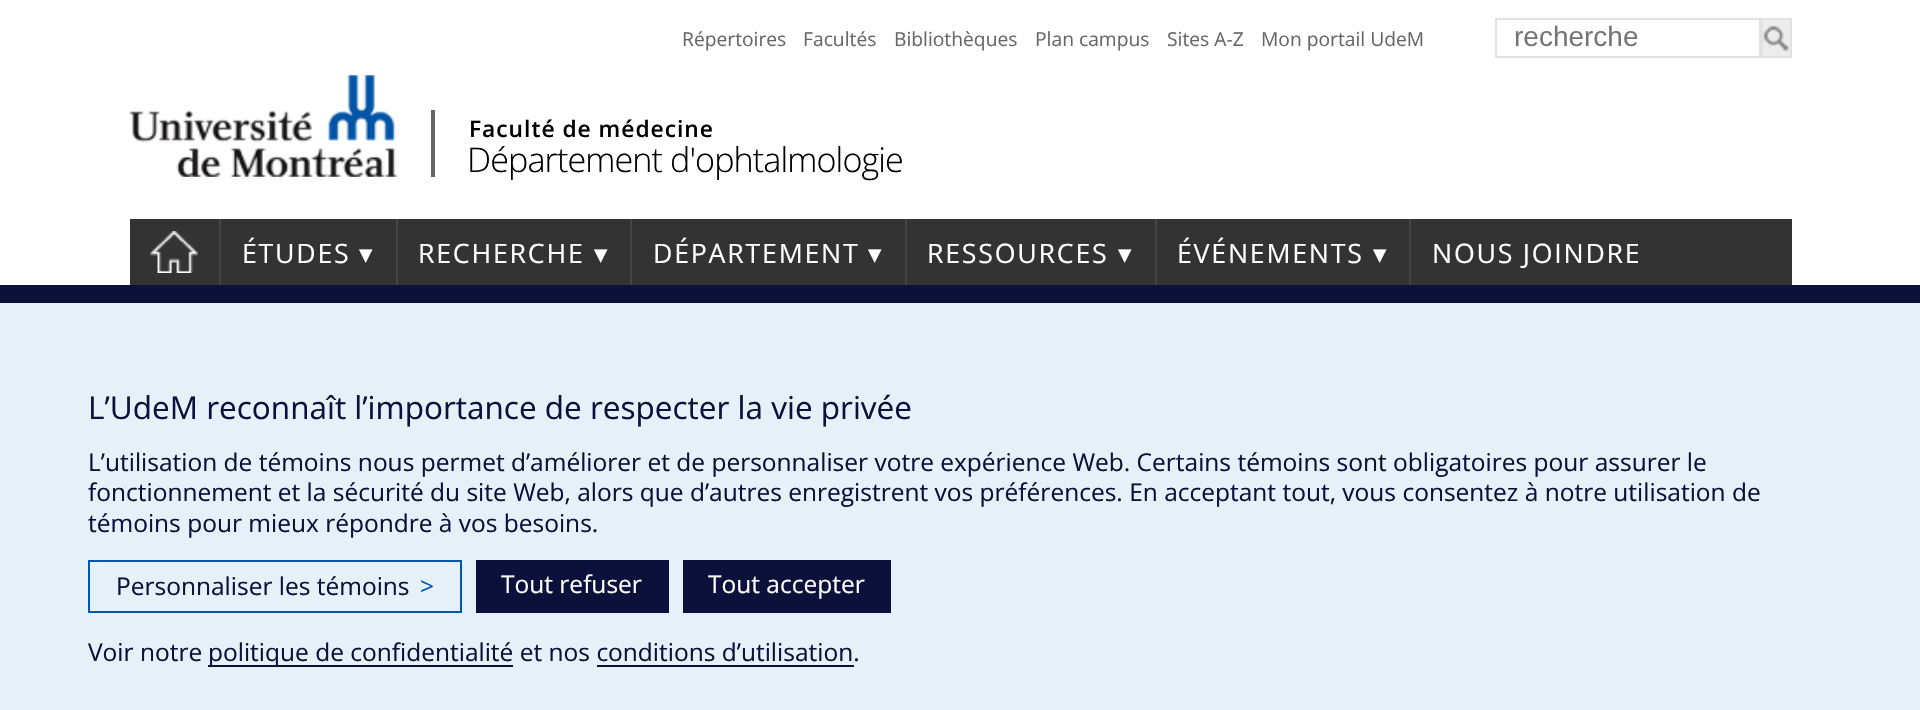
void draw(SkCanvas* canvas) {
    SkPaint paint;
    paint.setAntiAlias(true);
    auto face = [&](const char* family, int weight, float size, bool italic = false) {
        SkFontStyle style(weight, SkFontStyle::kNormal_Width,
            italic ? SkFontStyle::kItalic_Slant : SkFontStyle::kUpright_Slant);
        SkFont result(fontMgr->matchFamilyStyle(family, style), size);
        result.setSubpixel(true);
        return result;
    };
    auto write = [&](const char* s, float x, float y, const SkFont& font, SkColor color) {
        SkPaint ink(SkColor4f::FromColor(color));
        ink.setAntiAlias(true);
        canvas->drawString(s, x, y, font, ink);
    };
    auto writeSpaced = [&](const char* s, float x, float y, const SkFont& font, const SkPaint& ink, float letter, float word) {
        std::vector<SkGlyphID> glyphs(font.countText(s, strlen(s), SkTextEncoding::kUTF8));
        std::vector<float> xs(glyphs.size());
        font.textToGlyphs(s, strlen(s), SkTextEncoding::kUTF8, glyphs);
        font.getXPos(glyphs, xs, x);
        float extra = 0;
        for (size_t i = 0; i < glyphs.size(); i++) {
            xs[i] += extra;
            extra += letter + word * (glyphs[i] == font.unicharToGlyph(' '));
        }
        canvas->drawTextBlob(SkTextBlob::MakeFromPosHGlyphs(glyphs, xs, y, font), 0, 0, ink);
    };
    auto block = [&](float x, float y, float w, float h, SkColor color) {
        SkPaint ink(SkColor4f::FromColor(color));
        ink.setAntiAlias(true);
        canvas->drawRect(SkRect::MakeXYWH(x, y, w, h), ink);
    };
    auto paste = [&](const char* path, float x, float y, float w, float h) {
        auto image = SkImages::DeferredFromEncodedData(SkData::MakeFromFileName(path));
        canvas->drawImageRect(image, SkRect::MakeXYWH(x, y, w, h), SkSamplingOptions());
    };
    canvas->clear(SK_ColorWHITE);
    auto kFont1 = face("Open Sans", 400, 19.25f);
    write("Répertoires", 682, 46, kFont1, SkColorSetRGB(102, 102, 102));
    write("Facultés", 803, 46, kFont1, SkColorSetRGB(102, 102, 102));
    write("Bibliothèques", 894, 46, kFont1, SkColorSetRGB(102, 102, 102));
    write("Plan campus", 1035, 46, kFont1, SkColorSetRGB(102, 102, 102));
    write("Sites A-Z", 1167, 46, kFont1, SkColorSetRGB(102, 102, 102));
    write("Mon portail UdeM", 1261, 46, kFont1, SkColorSetRGB(102, 102, 102));
    paint.setStyle(SkPaint::kStroke_Style);
    paint.setStrokeWidth(2);
    paint.setColor(SkColorSetRGB(225, 225, 225));
    canvas->drawRect(SkRect::MakeXYWH(1496, 19, 264, 38), paint);
    auto kFont2 = face("Liberation Sans", 400, 28);
    write("recherche", 1514, 46, kFont2, SkColorSetRGB(117, 117, 117));
    block(1763, 20, 27, 36, SkColorSetRGB(236, 236, 236));
    paste("pic1.png", 1763, 25, 26, 27);
    canvas->drawRect(SkRect::MakeXYWH(1762, 19, 29, 38), paint);
    paste("pic2.png", 129, 75, 269, 102);
    block(431, 110, 4, 67, SkColorSetRGB(102, 102, 102));
    auto kFont3 = face("Open Sans", 600, 22.75f);
    paint.setStyle(SkPaint::kFill_Style);
    paint.setColor(SK_ColorBLACK);
    writeSpaced("Faculté de médecine", 469, 137, kFont3, paint, 1, 0);
    auto kFont4 = face("Open Sans", 300, 34.1f);
    writeSpaced("Département d'ophtalmologie", 467, 172, kFont4, paint, -0.9f, 0);
    block(130, 219, 1662, 66, SkColorSetRGB(51, 51, 51));
    block(219, 219, 2, 66, SkColorSetRGB(68, 68, 68));
    paste("pic3.png", 150, 231, 48, 42);
    block(396, 219, 2, 66, SkColorSetRGB(68, 68, 68));
    auto kFont5 = face("Open Sans", 400, 26.75f);
    paint.setColor(SK_ColorWHITE);
    writeSpaced("ÉTUDES", 242, 263, kFont5, paint, 1.75f, 0);
    auto kFont6 = face("DejaVu Sans", 400, 26.75f);
    writeSpaced("▾", 359, 263, kFont6, paint, 1.75f, 0);
    block(630, 219, 2, 66, SkColorSetRGB(68, 68, 68));
    writeSpaced("RECHERCHE", 418, 263, kFont5, paint, 1.75f, 0);
    writeSpaced("▾", 594, 263, kFont6, paint, 1.75f, 0);
    block(905, 219, 2, 66, SkColorSetRGB(68, 68, 68));
    writeSpaced("DÉPARTEMENT", 653, 263, kFont5, paint, 1.75f, 0);
    writeSpaced("▾", 868, 263, kFont6, paint, 1.75f, 0);
    block(1155, 219, 2, 66, SkColorSetRGB(68, 68, 68));
    writeSpaced("RESSOURCES", 927, 263, kFont5, paint, 1.75f, 0);
    writeSpaced("▾", 1118, 263, kFont6, paint, 1.75f, 0);
    block(1409, 219, 2, 66, SkColorSetRGB(68, 68, 68));
    writeSpaced("ÉVÉNEMENTS", 1177, 263, kFont5, paint, 1.75f, 0);
    writeSpaced("▾", 1373, 263, kFont6, paint, 1.75f, 0);
    writeSpaced("NOUS JOINDRE", 1432, 263, kFont5, paint, 1.75f, 0);
    block(0, 303, 1920, 407, SkColorSetRGB(229, 240, 248));
    block(0, 285, 1920, 18, SkColorSetRGB(11, 17, 58));
    auto kFont7 = face("Open Sans", 400, 31.5f);
    write("L’UdeM reconnaît l’importance de respecter la vie privée", 88, 419, kFont7, SkColorSetRGB(11, 17, 58));
    auto kFont8 = face("Open Sans", 400, 24.5f);
    write("L’utilisation de témoins nous permet d’améliorer et de personnaliser votre expérience Web. Certains témoins sont obligatoires pour assurer le", 88, 471, kFont8, SkColorSetRGB(11, 17, 58));
    write("fonctionnement et la sécurité du site Web, alors que d’autres enregistrent vos préférences. En acceptant tout, vous consentez à notre utilisation de", 88, 501, kFont8, SkColorSetRGB(11, 17, 58));
    write("témoins pour mieux répondre à vos besoins.", 88, 532, kFont8, SkColorSetRGB(11, 17, 58));
    paint.setStyle(SkPaint::kStroke_Style);
    paint.setColor(SkColorSetRGB(0, 87, 172));
    canvas->drawRect(SkRect::MakeXYWH(89, 561, 372, 51), paint);
    write("Personnaliser les témoins", 116, 595, kFont8, SkColorSetRGB(11, 17, 58));
    write(">", 420, 595, kFont8, SkColorSetRGB(0, 87, 172));
    block(476, 560, 193, 53, SkColorSetRGB(11, 17, 58));
    write("Tout refuser", 501, 593, kFont8, SK_ColorWHITE);
    block(683, 560, 208, 53, SkColorSetRGB(11, 17, 58));
    write("Tout accepter", 708, 593, kFont8, SK_ColorWHITE);
    write("Voir notre", 88, 661, kFont8, SkColorSetRGB(11, 17, 58));
    block(208, 665, 305, 2, SkColorSetRGB(11, 17, 58));
    write("politique de confidentialité et nos conditions d’utilisation.", 208, 661, kFont8, SkColorSetRGB(11, 17, 58));
    block(597, 665, 257, 2, SkColorSetRGB(11, 17, 58));
}
